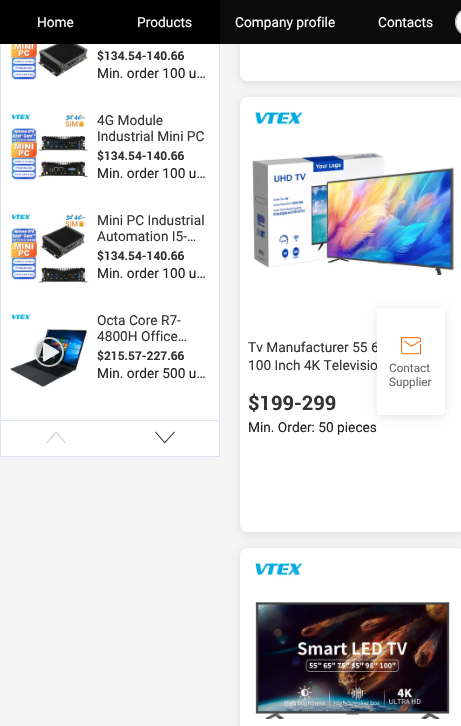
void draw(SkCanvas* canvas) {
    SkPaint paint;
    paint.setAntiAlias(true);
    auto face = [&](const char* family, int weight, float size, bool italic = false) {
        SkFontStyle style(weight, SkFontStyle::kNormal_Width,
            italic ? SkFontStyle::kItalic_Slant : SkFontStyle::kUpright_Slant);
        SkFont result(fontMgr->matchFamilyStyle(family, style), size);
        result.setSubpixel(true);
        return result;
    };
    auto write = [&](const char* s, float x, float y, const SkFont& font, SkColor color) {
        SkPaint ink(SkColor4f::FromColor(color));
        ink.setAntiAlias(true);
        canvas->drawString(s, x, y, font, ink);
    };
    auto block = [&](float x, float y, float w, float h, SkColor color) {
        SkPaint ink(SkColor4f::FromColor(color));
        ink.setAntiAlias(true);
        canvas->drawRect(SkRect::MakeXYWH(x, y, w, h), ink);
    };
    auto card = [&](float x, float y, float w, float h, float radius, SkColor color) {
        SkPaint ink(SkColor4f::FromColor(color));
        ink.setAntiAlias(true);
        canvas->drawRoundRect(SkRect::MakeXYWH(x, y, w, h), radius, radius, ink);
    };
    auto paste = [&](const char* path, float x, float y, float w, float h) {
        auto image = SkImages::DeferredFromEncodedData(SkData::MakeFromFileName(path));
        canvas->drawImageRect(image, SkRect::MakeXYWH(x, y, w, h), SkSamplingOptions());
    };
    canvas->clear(SkColorSetRGB(245, 245, 245));
    paint.setColor(SkColorSetARGB(26, 0, 0, 0));
    paint.setMaskFilter(SkMaskFilter::MakeBlur(kNormal_SkBlurStyle, 4));
    canvas->drawRoundRect(SkRect::MakeXYWH(240, -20, 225, 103), 8, 8, paint);
    paint.setMaskFilter(nullptr);
    card(240, -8, 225, 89, 8, SK_ColorWHITE);
    block(220, 0, 241, 44, SkColorSetRGB(12, 11, 11));
    block(1, 44, 218, 412, SK_ColorWHITE);
    paint.setStyle(SkPaint::kStroke_Style);
    paint.setStrokeWidth(1);
    paint.setColor(SkColorSetRGB(219, 227, 239));
    canvas->drawRect(SkRect::MakeXYWH(0.5f, 3.5f, 219, 453), paint);
    block(0, 0, 220, 44, SK_ColorBLACK);
    auto kFont1 = face("Roboto", 400, 14);
    write("Home", 37, 27, kFont1, SK_ColorWHITE);
    write("Products", 137, 27, kFont1, SK_ColorWHITE);
    write("Company profile", 235, 27, kFont1, SK_ColorWHITE);
    write("Contacts", 378, 27, kFont1, SK_ColorWHITE);
    paint.setStyle(SkPaint::kFill_Style);
    paint.setColor(SkColorSetRGB(196, 198, 207));
    canvas->drawPath(SkPathBuilder(SkPathFillType::kEvenOdd).moveTo(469, 8).lineTo(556, 8).lineTo(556, 36).lineTo(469, 36).cubicTo(461, 36, 455, 30, 455, 22).cubicTo(455, 14, 461, 8, 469, 8).close().moveTo(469, 9).lineTo(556, 9).lineTo(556, 35).lineTo(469, 35).cubicTo(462, 35, 456, 29, 456, 22).cubicTo(456, 15, 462, 9, 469, 9).close().detach(), paint);
    paint.setColor(SK_ColorWHITE);
    canvas->drawPath(SkPathBuilder().moveTo(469, 9).lineTo(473.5f, 9).cubicTo(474, 9, 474, 9, 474, 9.5f).lineTo(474, 34.5f).cubicTo(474, 35, 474, 35, 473.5f, 35).lineTo(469, 35).cubicTo(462, 35, 456, 29, 456, 22).cubicTo(456, 15, 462, 9, 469, 9).close().detach(), paint);
    paste("pic1.png", 9, 44, 79, 36);
    auto kFont2 = face("Roboto", 700, 12);
    write("$134.54-140.66", 97, 60, kFont2, SkColorSetRGB(51, 51, 51));
    write("Min. order 100 u…", 97, 78, kFont1, SkColorSetRGB(34, 34, 34));
    paste("pic2.png", 9, 112, 80, 69);
    write("4G Module", 97, 125, kFont1, SkColorSetRGB(51, 51, 51));
    write("Industrial Mini PC", 97, 141, kFont1, SkColorSetRGB(51, 51, 51));
    write("$134.54-140.66", 97, 160, kFont2, SkColorSetRGB(51, 51, 51));
    write("Min. order 100 u…", 97, 178, kFont1, SkColorSetRGB(34, 34, 34));
    paste("pic3.png", 9, 212, 80, 71);
    write("Mini PC Industrial", 97, 225, kFont1, SkColorSetRGB(51, 51, 51));
    write("Automation I5-…", 97, 241, kFont1, SkColorSetRGB(51, 51, 51));
    write("$134.54-140.66", 97, 260, kFont2, SkColorSetRGB(51, 51, 51));
    write("Min. order 100 u…", 97, 278, kFont1, SkColorSetRGB(34, 34, 34));
    paste("pic4.png", 10, 314, 78, 74);
    paint.setColor(SkColorSetARGB(69, 0, 0, 0));
    canvas->drawCircle(49, 352, 15, paint);
    paint.setStyle(SkPaint::kStroke_Style);
    paint.setStrokeWidth(2);
    paint.setColor(SkColorSetARGB(184, 255, 255, 255));
    canvas->drawCircle(49, 352, 14, paint);
    paste("pic5.png", 42, 342, 18, 20);
    write("Octa Core R7-", 97, 325, kFont1, SkColorSetRGB(51, 51, 51));
    write("4800H Office…", 97, 341, kFont1, SkColorSetRGB(51, 51, 51));
    write("$215.57-227.66", 97, 360, kFont2, SkColorSetRGB(51, 51, 51));
    write("Min. order 500 u…", 97, 378, kFont1, SkColorSetRGB(34, 34, 34));
    block(1, 420, 218, 1, SkColorSetRGB(219, 227, 239));
    paste("pic6.png", 46, 431, 20, 13);
    paste("pic7.png", 155, 431, 20, 13);
    paint.setStyle(SkPaint::kFill_Style);
    paint.setColor(SkColorSetARGB(26, 0, 0, 0));
    paint.setMaskFilter(SkMaskFilter::MakeBlur(kNormal_SkBlurStyle, 4));
    canvas->drawRoundRect(SkRect::MakeXYWH(240, 99, 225, 435), 8, 8, paint);
    paint.setMaskFilter(nullptr);
    card(240, 97, 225, 435, 8, SK_ColorWHITE);
    paste("pic8.png", 252, 111, 202, 164);
    write("Tv Manufacturer 55 6", 248, 352, kFont1, SkColorSetRGB(51, 51, 51));
    write("100 Inch 4K Televisio", 248, 370, kFont1, SkColorSetRGB(51, 51, 51));
    auto kFont3 = face("Roboto", 700, 20);
    write("$199-299", 248, 410, kFont3, SkColorSetRGB(51, 51, 51));
    write("Min. Order: 50 pieces", 248, 432, kFont1, SkColorSetRGB(34, 34, 34));
    paint.setMaskFilter(SkMaskFilter::MakeBlur(kNormal_SkBlurStyle, 4));
    canvas->drawRoundRect(SkRect::MakeXYWH(240, 550, 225, 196), 8, 8, paint);
    paint.setMaskFilter(nullptr);
    card(240, 548, 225, 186, 8, SK_ColorWHITE);
    paste("pic9.png", 255, 562, 195, 157);
    paint.setMaskFilter(SkMaskFilter::MakeBlur(kNormal_SkBlurStyle, 5));
    canvas->drawRoundRect(SkRect::MakeXYWH(377, 310, 68, 107), 4, 4, paint);
    paint.setMaskFilter(nullptr);
    card(377, 308, 68, 107, 4, SK_ColorWHITE);
    paste("pic10.png", 401, 337, 20, 18);
    auto kFont4 = face("Roboto", 400, 12);
    write("Contact", 389, 372, kFont4, SkColorSetRGB(102, 102, 102));
    write("Supplier", 389, 386, kFont4, SkColorSetRGB(102, 102, 102));
}
